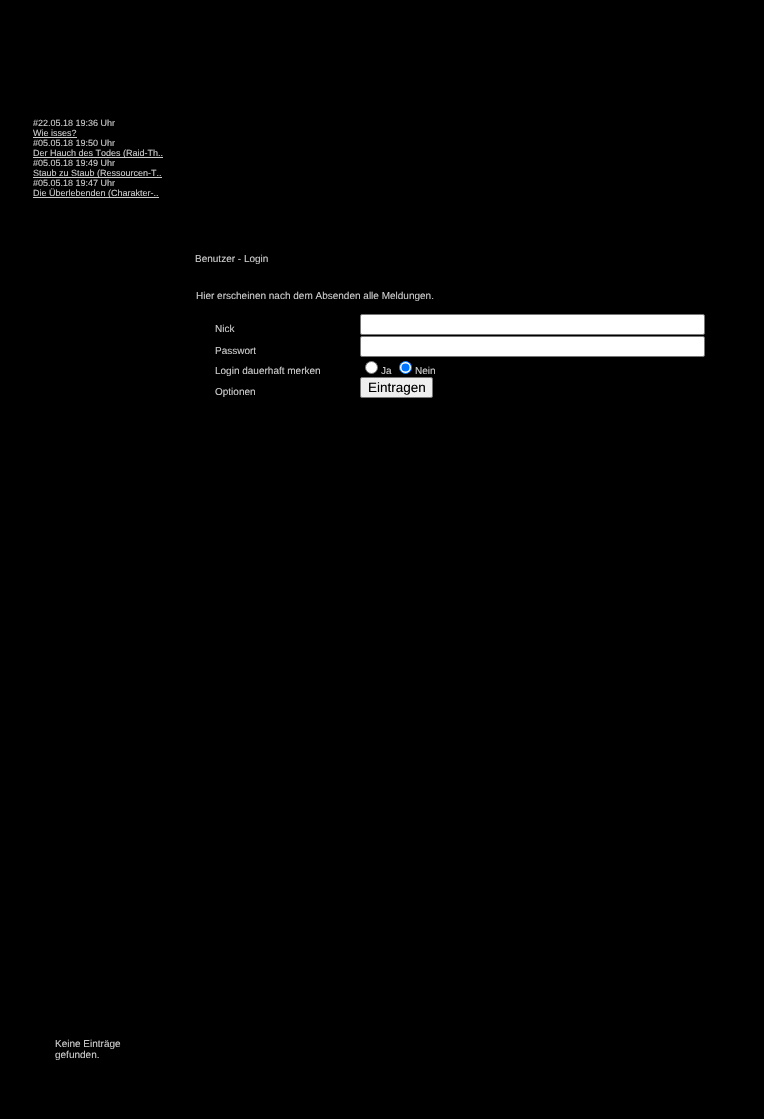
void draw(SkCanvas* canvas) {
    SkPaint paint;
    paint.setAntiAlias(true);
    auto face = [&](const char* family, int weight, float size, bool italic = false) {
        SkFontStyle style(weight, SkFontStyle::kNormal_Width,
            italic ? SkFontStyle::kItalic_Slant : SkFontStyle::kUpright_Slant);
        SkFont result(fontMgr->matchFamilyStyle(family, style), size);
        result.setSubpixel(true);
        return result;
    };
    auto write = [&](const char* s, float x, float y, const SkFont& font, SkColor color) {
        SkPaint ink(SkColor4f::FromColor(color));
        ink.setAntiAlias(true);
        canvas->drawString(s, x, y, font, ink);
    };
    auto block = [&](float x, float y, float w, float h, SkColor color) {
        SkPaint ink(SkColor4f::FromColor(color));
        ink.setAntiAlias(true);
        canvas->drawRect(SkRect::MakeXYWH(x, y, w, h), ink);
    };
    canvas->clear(SK_ColorBLACK);
    auto kFont1 = face("Liberation Sans", 400, 9);
    write("#22.05.18 19:36 Uhr", 33, 126, kFont1, SkColorSetRGB(204, 204, 204));
    write("Wie isses?", 33, 136, kFont1, SkColorSetRGB(204, 204, 204));
    block(33, 137, 44, 1, SkColorSetRGB(204, 204, 204));
    write("#05.05.18 19:50 Uhr", 33, 146, kFont1, SkColorSetRGB(204, 204, 204));
    block(33, 157, 130, 1, SkColorSetRGB(204, 204, 204));
    write("Der Hauch des Todes (Raid-Th..", 33, 156, kFont1, SkColorSetRGB(204, 204, 204));
    write("#05.05.18 19:49 Uhr", 33, 166, kFont1, SkColorSetRGB(204, 204, 204));
    block(33, 177, 129, 1, SkColorSetRGB(204, 204, 204));
    write("Staub zu Staub (Ressourcen-T..", 33, 176, kFont1, SkColorSetRGB(204, 204, 204));
    write("#05.05.18 19:47 Uhr", 33, 186, kFont1, SkColorSetRGB(204, 204, 204));
    block(33, 197, 126, 1, SkColorSetRGB(204, 204, 204));
    write("Die Überlebenden (Charakter-..", 33, 196, kFont1, SkColorSetRGB(204, 204, 204));
    auto kFont2 = face("Liberation Sans", 400, 10);
    write("Benutzer - Login", 195, 262, kFont2, SkColorSetRGB(204, 204, 204));
    write("Hier erscheinen nach dem Absenden alle Meldungen.", 196, 299, kFont2, SkColorSetRGB(204, 204, 204));
    write("Nick", 215, 332, kFont2, SkColorSetRGB(204, 204, 204));
    paint.setColor(SK_ColorWHITE);
    canvas->drawRoundRect(SkRect::MakeXYWH(360.5f, 314.5f, 344, 20), 1.5f, 1.5f, paint);
    paint.setStyle(SkPaint::kStroke_Style);
    paint.setStrokeWidth(1);
    paint.setColor(SkColorSetRGB(118, 118, 118));
    canvas->drawRoundRect(SkRect::MakeXYWH(360.5f, 314.5f, 344, 20), 1.5f, 1.5f, paint);
    write("Passwort", 215, 354, kFont2, SkColorSetRGB(204, 204, 204));
    paint.setStyle(SkPaint::kFill_Style);
    paint.setColor(SK_ColorWHITE);
    canvas->drawRoundRect(SkRect::MakeXYWH(360.5f, 336.5f, 344, 20), 1.5f, 1.5f, paint);
    paint.setStyle(SkPaint::kStroke_Style);
    paint.setColor(SkColorSetRGB(118, 118, 118));
    canvas->drawRoundRect(SkRect::MakeXYWH(360.5f, 336.5f, 344, 20), 1.5f, 1.5f, paint);
    write("Login dauerhaft merken", 215, 374, kFont2, SkColorSetRGB(204, 204, 204));
    paint.setStyle(SkPaint::kFill_Style);
    paint.setColor(SK_ColorWHITE);
    canvas->drawCircle(371.5f, 367.5f, 6, paint);
    paint.setStyle(SkPaint::kStroke_Style);
    paint.setColor(SkColorSetRGB(118, 118, 118));
    canvas->drawCircle(371.5f, 367.5f, 6, paint);
    write("Ja", 381, 374, kFont2, SkColorSetRGB(204, 204, 204));
    paint.setStyle(SkPaint::kFill_Style);
    paint.setColor(SK_ColorWHITE);
    canvas->drawCircle(405.5f, 367.5f, 6, paint);
    paint.setStyle(SkPaint::kStroke_Style);
    paint.setColor(SkColorSetRGB(0, 117, 255));
    canvas->drawCircle(405.5f, 367.5f, 6, paint);
    paint.setStyle(SkPaint::kFill_Style);
    canvas->drawCircle(405.5f, 367.5f, 4, paint);
    write("Nein", 415, 374, kFont2, SkColorSetRGB(204, 204, 204));
    write("Optionen", 215, 395, kFont2, SkColorSetRGB(204, 204, 204));
    paint.setColor(SkColorSetRGB(239, 239, 239));
    canvas->drawRoundRect(SkRect::MakeXYWH(360.5f, 377.5f, 72, 20), 1.5f, 1.5f, paint);
    paint.setStyle(SkPaint::kStroke_Style);
    paint.setColor(SkColorSetRGB(118, 118, 118));
    canvas->drawRoundRect(SkRect::MakeXYWH(360.5f, 377.5f, 72, 20), 1.5f, 1.5f, paint);
    auto kFont3 = face("Liberation Sans", 400, 13.5f);
    write("Eintragen", 368, 392, kFont3, SK_ColorBLACK);
    write("Keine Einträge", 55, 1047, kFont2, SkColorSetRGB(204, 204, 204));
    write("gefunden.", 55, 1058, kFont2, SkColorSetRGB(204, 204, 204));
}
